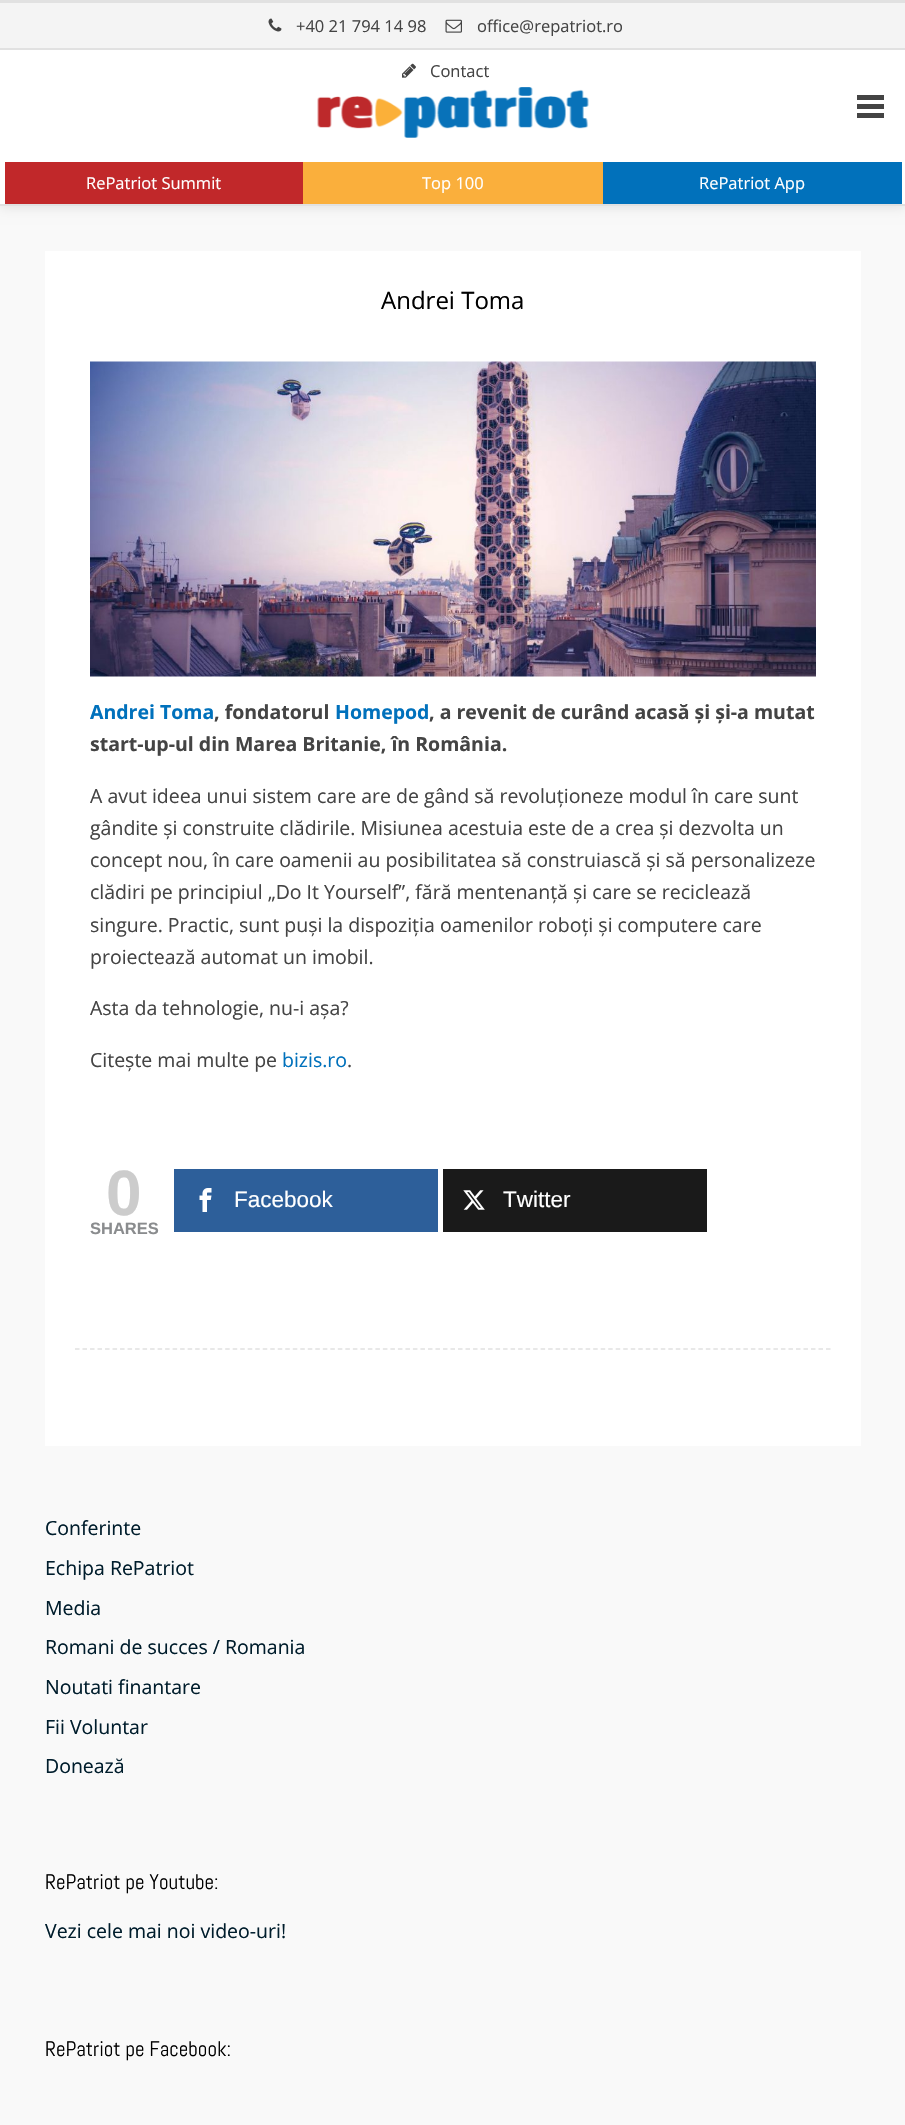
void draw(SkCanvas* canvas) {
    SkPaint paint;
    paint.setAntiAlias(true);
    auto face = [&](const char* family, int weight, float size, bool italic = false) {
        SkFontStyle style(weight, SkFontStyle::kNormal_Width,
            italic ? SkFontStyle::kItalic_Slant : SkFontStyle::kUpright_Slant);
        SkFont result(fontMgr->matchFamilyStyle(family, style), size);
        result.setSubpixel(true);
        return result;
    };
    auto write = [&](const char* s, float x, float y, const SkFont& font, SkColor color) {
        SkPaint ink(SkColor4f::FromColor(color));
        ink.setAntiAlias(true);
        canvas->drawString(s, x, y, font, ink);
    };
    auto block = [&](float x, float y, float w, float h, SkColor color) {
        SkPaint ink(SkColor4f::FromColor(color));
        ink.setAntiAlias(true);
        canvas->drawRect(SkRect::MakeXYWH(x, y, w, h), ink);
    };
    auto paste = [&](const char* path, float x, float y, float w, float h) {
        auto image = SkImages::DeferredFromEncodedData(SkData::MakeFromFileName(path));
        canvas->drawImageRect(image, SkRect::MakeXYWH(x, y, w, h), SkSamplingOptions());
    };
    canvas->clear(SkColorSetRGB(249, 249, 249));
    block(0, 3, 905, 201, SK_ColorWHITE);
    canvas->save();
    canvas->clipPath(SkPathBuilder(SkPathFillType::kEvenOdd).moveTo(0, 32).lineTo(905, 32).lineTo(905, 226).lineTo(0, 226).close().moveTo(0, 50).lineTo(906, 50).lineTo(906, 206).lineTo(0, 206).close().detach(), true);
    paint.setColor(SkColorSetARGB(26, 0, 0, 0));
    paint.setMaskFilter(SkMaskFilter::MakeBlur(kNormal_SkBlurStyle, 6));
    canvas->drawRect(SkRect::MakeXYWH(0, 51, 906, 156), paint);
    paint.setMaskFilter(nullptr);
    canvas->restore();
    block(0, 3, 905, 45, SkColorSetARGB(242, 243, 243, 243));
    block(0, 0, 905, 3, SkColorSetRGB(225, 225, 225));
    block(0, 48, 905, 2, SkColorSetRGB(225, 225, 225));
    paste("pic1.png", 268, 18, 14, 14);
    auto kFont1 = face("Open Sans", 400, 16.5f);
    write("+40 21 794 14 98", 296, 32, kFont1, SkColorSetRGB(68, 68, 68));
    paste("pic2.png", 445, 19, 17, 14);
    write("office@repatriot.ro", 477, 32, kFont1, SkColorSetRGB(68, 68, 68));
    paste("pic3.png", 402, 63, 14, 15);
    write("Contact", 430, 77, kFont1, SkColorSetRGB(68, 68, 68));
    block(0, 204, 905, 2, SkColorSetRGB(225, 225, 225));
    paste("pic4.png", 317, 87, 272, 51);
    block(857, 95, 27, 5, SkColorSetRGB(68, 68, 68));
    block(857, 104, 27, 5, SkColorSetRGB(68, 68, 68));
    block(857, 113, 27, 5, SkColorSetRGB(68, 68, 68));
    block(5, 162, 298, 42, SkColorSetRGB(193, 40, 42));
    write("RePatriot Summit", 86, 189, kFont1, SK_ColorWHITE);
    block(303, 162, 300, 42, SkColorSetRGB(250, 175, 60));
    write("Top 100", 422, 189, kFont1, SK_ColorWHITE);
    block(603, 162, 299, 42, SkColorSetRGB(1, 113, 187));
    write("RePatriot App", 699, 189, kFont1, SK_ColorWHITE);
    block(45, 251, 816, 1195, SK_ColorWHITE);
    auto kFont2 = face("Open Sans", 400, 24);
    write("Andrei Toma", 381, 309, kFont2, SK_ColorBLACK);
    paste("pic5.png", 90, 361, 726, 316);
    auto kFont3 = face("Open Sans", 700, 19.5f);
    write("Andrei Toma", 90, 719, kFont3, SkColorSetRGB(0, 113, 188));
    write(", fondatorul", 214, 719, kFont3, SkColorSetRGB(68, 68, 68));
    write("Homepod", 335, 719, kFont3, SkColorSetRGB(0, 113, 188));
    write(", a revenit de curând acasă și și-a mutat", 429, 719, kFont3, SkColorSetRGB(68, 68, 68));
    write("start-up-ul din Marea Britanie, în România.", 90, 751, kFont3, SkColorSetRGB(68, 68, 68));
    auto kFont4 = face("Open Sans", 400, 19.5f);
    write("A avut ideea unui sistem care are de gând să revoluționeze modul în care sunt", 90, 803, kFont4, SkColorSetRGB(68, 68, 68));
    write("gândite și construite clădirile. Misiunea acestuia este de a crea și dezvolta un", 90, 835, kFont4, SkColorSetRGB(68, 68, 68));
    write("concept nou, în care oamenii au posibilitatea să construiască și să personalizeze", 90, 867, kFont4, SkColorSetRGB(68, 68, 68));
    write("clădiri pe principiul „Do It Yourself”, fără mentenanță și care se reciclează", 90, 899, kFont4, SkColorSetRGB(68, 68, 68));
    write("singure. Practic, sunt puși la dispoziția oamenilor roboți și computere care", 90, 932, kFont4, SkColorSetRGB(68, 68, 68));
    write("proiectează automat un imobil.", 90, 964, kFont4, SkColorSetRGB(68, 68, 68));
    write("Asta da tehnologie, nu-i așa?", 90, 1015, kFont4, SkColorSetRGB(68, 68, 68));
    write("Citește mai multe pe", 90, 1067, kFont4, SkColorSetRGB(68, 68, 68));
    write("bizis.ro", 282, 1067, kFont4, SkColorSetRGB(0, 113, 188));
    write(".", 347, 1067, kFont4, SkColorSetRGB(68, 68, 68));
    auto kFont5 = face("Liberation Sans", 700, 64);
    write("0", 106, 1215, kFont5, SkColorSetRGB(204, 204, 204));
    auto kFont6 = face("Liberation Sans", 700, 16.5f);
    write("SHARES", 90, 1234, kFont6, SkColorSetRGB(138, 140, 142));
    block(174, 1169, 264, 63, SkColorSetRGB(45, 95, 154));
    paste("pic6.png", 199, 1188, 13, 24);
    auto kFont7 = face("Liberation Sans", 400, 22.5f);
    write("Facebook", 234, 1207, kFont7, SK_ColorWHITE);
    block(443, 1169, 264, 63, SkColorSetRGB(26, 26, 26));
    paste("pic7.png", 463, 1190, 22, 20);
    write("Twitter", 503, 1207, kFont7, SK_ColorWHITE);
    paint.setStyle(SkPaint::kStroke_Style);
    paint.setStrokeWidth(1.5f);
    paint.setColor(SkColorSetRGB(225, 225, 225));
    paint.setPathEffect(SkDashPathEffect::Make({{4.5f, 3.01f}}, 0));
    canvas->drawPath(SkPathBuilder().moveTo(75, 1349).lineTo(831, 1349).detach(), paint);
    paint.setPathEffect(nullptr);
    write("Conferinte", 45, 1535, kFont4, SkColorSetRGB(0, 29, 44));
    write("Echipa RePatriot", 45, 1575, kFont4, SkColorSetRGB(0, 29, 44));
    write("Media", 45, 1615, kFont4, SkColorSetRGB(0, 29, 44));
    write("Romani de succes / Romania", 45, 1654, kFont4, SkColorSetRGB(0, 29, 44));
    write("Noutati finantare", 45, 1694, kFont4, SkColorSetRGB(0, 29, 44));
    write("Fii Voluntar", 45, 1734, kFont4, SkColorSetRGB(0, 29, 44));
    write("Donează", 45, 1773, kFont4, SkColorSetRGB(0, 29, 44));
    auto kFont8 = face("Abel", 400, 21);
    write("RePatriot pe Youtube:", 45, 1889, kFont8, SK_ColorBLACK);
    write("Vezi cele mai noi video-uri!", 45, 1938, kFont4, SkColorSetRGB(0, 29, 44));
    write("RePatriot pe Facebook:", 45, 2056, kFont8, SK_ColorBLACK);
}
